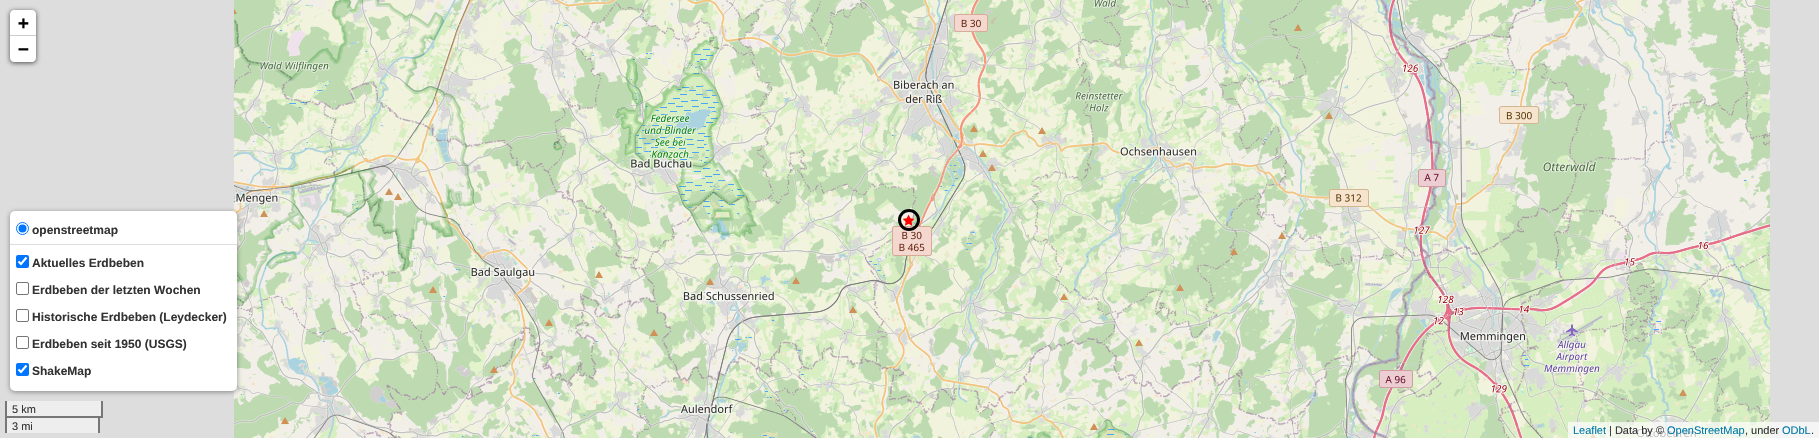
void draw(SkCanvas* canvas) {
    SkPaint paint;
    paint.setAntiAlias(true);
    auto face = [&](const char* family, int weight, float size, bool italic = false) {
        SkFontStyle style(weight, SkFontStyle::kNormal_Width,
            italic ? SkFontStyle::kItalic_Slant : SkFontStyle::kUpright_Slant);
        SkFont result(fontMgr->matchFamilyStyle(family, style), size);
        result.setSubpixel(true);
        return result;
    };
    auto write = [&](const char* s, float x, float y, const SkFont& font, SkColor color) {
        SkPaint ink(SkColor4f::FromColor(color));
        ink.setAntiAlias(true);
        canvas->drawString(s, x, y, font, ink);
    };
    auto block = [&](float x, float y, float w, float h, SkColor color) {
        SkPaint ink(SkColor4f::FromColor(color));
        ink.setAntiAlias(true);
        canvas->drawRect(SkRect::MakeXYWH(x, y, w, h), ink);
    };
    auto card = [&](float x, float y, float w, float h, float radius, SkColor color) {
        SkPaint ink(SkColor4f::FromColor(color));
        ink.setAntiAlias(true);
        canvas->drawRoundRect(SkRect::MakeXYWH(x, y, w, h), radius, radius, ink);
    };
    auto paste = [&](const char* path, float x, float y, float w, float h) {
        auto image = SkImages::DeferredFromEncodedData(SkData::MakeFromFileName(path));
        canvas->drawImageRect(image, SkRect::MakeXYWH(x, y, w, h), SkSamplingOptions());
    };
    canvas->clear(SkColorSetRGB(221, 221, 221));
    block(7, 418, 91, 15, SkColorSetRGB(238, 238, 238));
    paste("pic1.png", 234, 0, 256, 72);
    paste("pic2.png", 490, 0, 256, 72);
    paste("pic3.png", 746, 0, 256, 72);
    paste("pic4.png", 1002, 0, 256, 72);
    paste("pic5.png", 1258, 0, 256, 72);
    paste("pic6.png", 1514, 0, 256, 72);
    paste("pic7.png", 234, 72, 256, 256);
    paste("pic8.png", 490, 72, 256, 256);
    paste("pic9.png", 746, 72, 256, 256);
    paste("pic10.png", 1002, 72, 256, 256);
    paste("pic11.png", 1258, 72, 256, 256);
    paste("pic12.png", 1514, 72, 256, 256);
    paste("pic13.png", 234, 328, 256, 110);
    paste("pic14.png", 490, 328, 256, 110);
    paste("pic15.png", 746, 328, 256, 110);
    paste("pic16.png", 1002, 328, 256, 110);
    paste("pic17.png", 1258, 328, 256, 110);
    paste("pic18.png", 1514, 328, 256, 110);
    paint.setStyle(SkPaint::kStroke_Style);
    paint.setStrokeWidth(3);
    paint.setColor(SK_ColorBLACK);
    canvas->drawCircle(909, 220, 9.5f, paint);
    paste("pic19.png", 903, 215, 12, 11);
    paint.setStyle(SkPaint::kFill_Style);
    paint.setColor(SkColorSetARGB(166, 0, 0, 0));
    paint.setMaskFilter(SkMaskFilter::MakeBlur(kNormal_SkBlurStyle, 2.5f));
    canvas->drawRoundRect(SkRect::MakeXYWH(10, 11, 26, 52), 4, 4, paint);
    paint.setMaskFilter(nullptr);
    paint.setColor(SK_ColorWHITE);
    canvas->drawPath(SkPathBuilder().moveTo(14, 10).lineTo(32, 10).cubicTo(34, 10, 36, 12, 36, 14).lineTo(36, 36).lineTo(10, 36).lineTo(10, 14).cubicTo(10, 12, 12, 10, 14, 10).close().detach(), paint);
    block(10, 35, 26, 1, SkColorSetRGB(204, 204, 204));
    auto kFont1 = face("DejaVu Sans Mono", 700, 18);
    write("+", 18, 29, kFont1, SK_ColorBLACK);
    canvas->drawPath(SkPathBuilder().moveTo(10, 36).lineTo(36, 36).lineTo(36, 58).cubicTo(36, 60, 34, 62, 32, 62).lineTo(14, 62).cubicTo(12, 62, 10, 60, 10, 58).close().detach(), paint);
    write("−", 18, 55, kFont1, SK_ColorBLACK);
    paint.setColor(SkColorSetARGB(102, 0, 0, 0));
    paint.setMaskFilter(SkMaskFilter::MakeBlur(kNormal_SkBlurStyle, 2.5f));
    canvas->drawRoundRect(SkRect::MakeXYWH(10, 212, 227, 180), 5, 5, paint);
    paint.setMaskFilter(nullptr);
    card(10, 211, 227, 180, 5, SK_ColorWHITE);
    paint.setStyle(SkPaint::kStroke_Style);
    paint.setStrokeWidth(1);
    paint.setColor(SkColorSetRGB(0, 117, 255));
    canvas->drawCircle(22.5f, 228.5f, 6, paint);
    paint.setStyle(SkPaint::kFill_Style);
    canvas->drawCircle(22.5f, 228.5f, 4, paint);
    auto kFont2 = face("Liberation Sans", 700, 12);
    write("openstreetmap", 32, 234, kFont2, SkColorSetRGB(51, 51, 51));
    block(10, 244, 227, 1, SkColorSetRGB(221, 221, 221));
    card(16, 255, 13, 13, 2, SkColorSetRGB(0, 117, 255));
    paint.setStyle(SkPaint::kStroke_Style);
    paint.setStrokeWidth(2.1f);
    paint.setColor(SK_ColorWHITE);
    canvas->drawPath(SkPathBuilder().moveTo(18.5f, 261.5f).lineTo(21, 264).lineTo(26.5f, 257.5f).detach(), paint);
    write("Aktuelles Erdbeben", 32, 267, kFont2, SkColorSetRGB(51, 51, 51));
    paint.setStrokeWidth(1);
    paint.setColor(SkColorSetRGB(118, 118, 118));
    canvas->drawRoundRect(SkRect::MakeXYWH(16.5f, 282.5f, 12, 12), 1.5f, 1.5f, paint);
    write("Erdbeben der letzten Wochen", 32, 294, kFont2, SkColorSetRGB(51, 51, 51));
    canvas->drawRoundRect(SkRect::MakeXYWH(16.5f, 309.5f, 12, 12), 1.5f, 1.5f, paint);
    write("Historische Erdbeben (Leydecker)", 32, 321, kFont2, SkColorSetRGB(51, 51, 51));
    canvas->drawRoundRect(SkRect::MakeXYWH(16.5f, 336.5f, 12, 12), 1.5f, 1.5f, paint);
    write("Erdbeben seit 1950 (USGS)", 32, 348, kFont2, SkColorSetRGB(51, 51, 51));
    card(16, 363, 13, 13, 2, SkColorSetRGB(0, 117, 255));
    paint.setStrokeWidth(2.1f);
    paint.setColor(SK_ColorWHITE);
    canvas->drawPath(SkPathBuilder().moveTo(18.5f, 369.5f).lineTo(21, 372).lineTo(26.5f, 365.5f).detach(), paint);
    write("ShakeMap", 32, 375, kFont2, SkColorSetRGB(51, 51, 51));
    block(7, 401, 94, 15, SkColorSetRGB(238, 238, 238));
    block(101, 401, 2, 17, SkColorSetRGB(119, 119, 119));
    block(100, 416, 3, 2, SkColorSetRGB(119, 119, 119));
    block(5, 401, 2, 17, SkColorSetRGB(119, 119, 119));
    auto kFont3 = face("Liberation Sans", 400, 11);
    write("5 km", 12, 413, kFont3, SkColorSetRGB(51, 51, 51));
    block(5, 416, 95, 2, SkColorSetRGB(119, 119, 119));
    block(98, 416, 2, 17, SkColorSetRGB(119, 119, 119));
    block(5, 416, 2, 17, SkColorSetRGB(119, 119, 119));
    write("3 mi", 12, 430, kFont3, SkColorSetRGB(51, 51, 51));
    block(1568, 422, 251, 16, SkColorSetARGB(179, 255, 255, 255));
    write("Leaflet", 1573, 434, kFont3, SkColorSetRGB(0, 120, 168));
    write("| Data by ©", 1609, 434, kFont3, SkColorSetRGB(51, 51, 51));
    write("OpenStreetMap", 1667, 434, kFont3, SkColorSetRGB(0, 120, 168));
    write(", under", 1745, 434, kFont3, SkColorSetRGB(51, 51, 51));
    write("ODbL", 1782, 434, kFont3, SkColorSetRGB(0, 120, 168));
    write(".", 1811, 434, kFont3, SkColorSetRGB(51, 51, 51));
}
